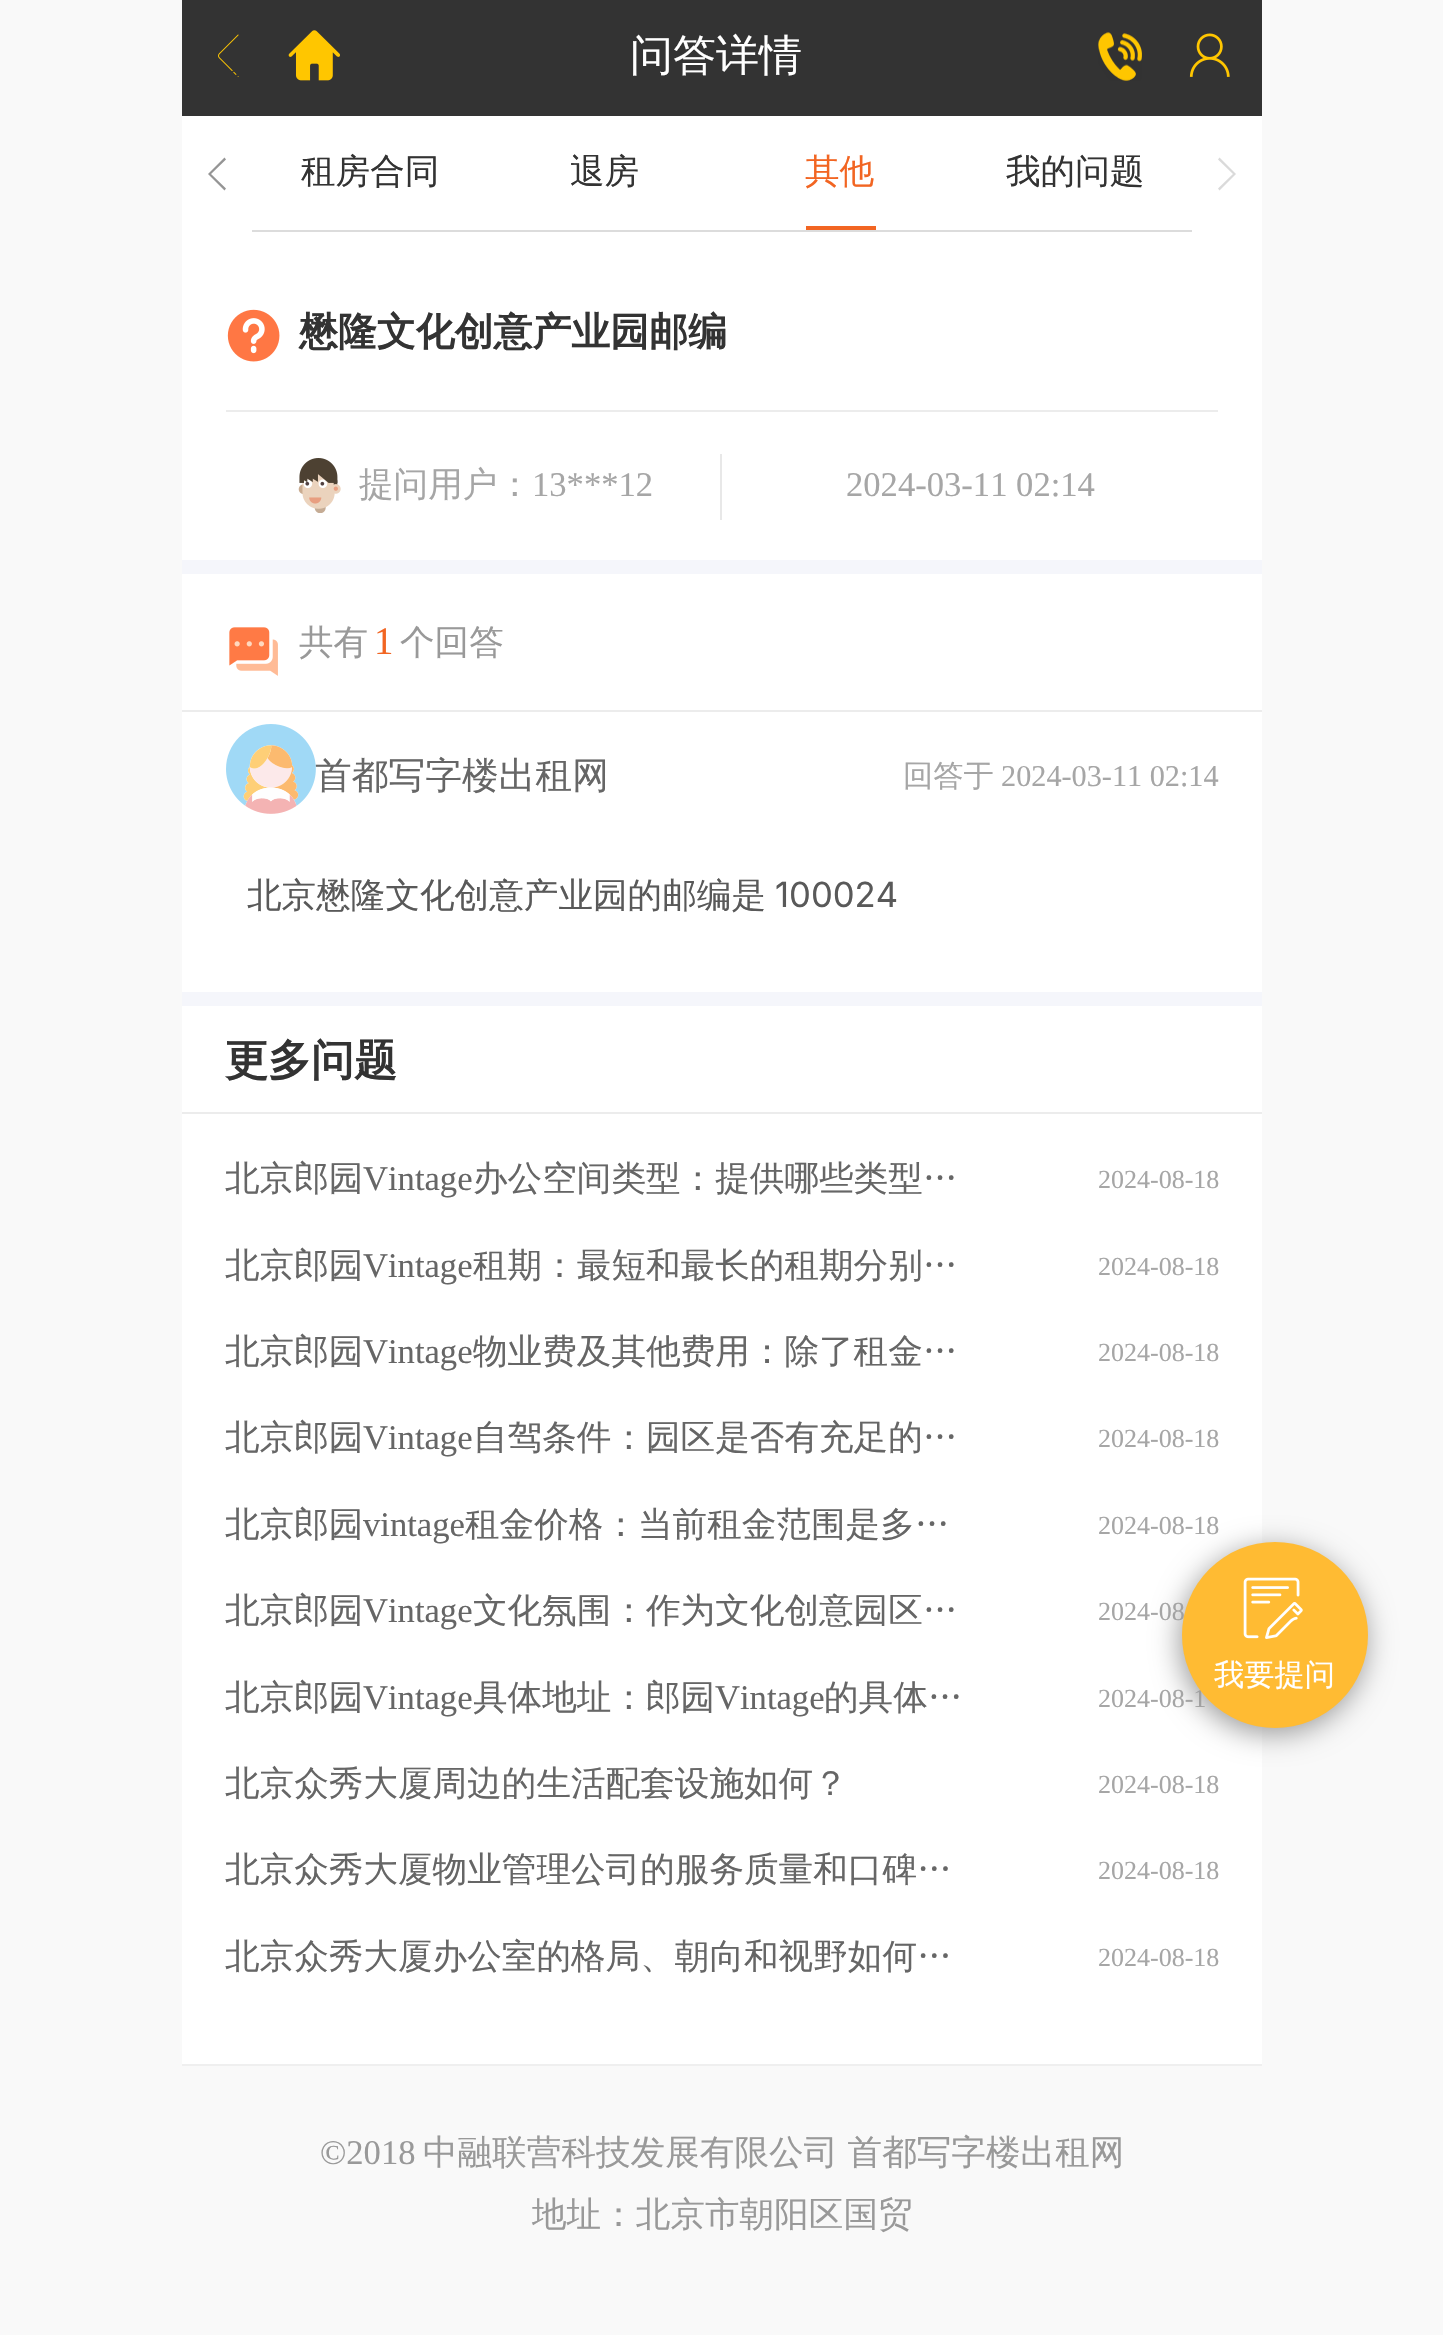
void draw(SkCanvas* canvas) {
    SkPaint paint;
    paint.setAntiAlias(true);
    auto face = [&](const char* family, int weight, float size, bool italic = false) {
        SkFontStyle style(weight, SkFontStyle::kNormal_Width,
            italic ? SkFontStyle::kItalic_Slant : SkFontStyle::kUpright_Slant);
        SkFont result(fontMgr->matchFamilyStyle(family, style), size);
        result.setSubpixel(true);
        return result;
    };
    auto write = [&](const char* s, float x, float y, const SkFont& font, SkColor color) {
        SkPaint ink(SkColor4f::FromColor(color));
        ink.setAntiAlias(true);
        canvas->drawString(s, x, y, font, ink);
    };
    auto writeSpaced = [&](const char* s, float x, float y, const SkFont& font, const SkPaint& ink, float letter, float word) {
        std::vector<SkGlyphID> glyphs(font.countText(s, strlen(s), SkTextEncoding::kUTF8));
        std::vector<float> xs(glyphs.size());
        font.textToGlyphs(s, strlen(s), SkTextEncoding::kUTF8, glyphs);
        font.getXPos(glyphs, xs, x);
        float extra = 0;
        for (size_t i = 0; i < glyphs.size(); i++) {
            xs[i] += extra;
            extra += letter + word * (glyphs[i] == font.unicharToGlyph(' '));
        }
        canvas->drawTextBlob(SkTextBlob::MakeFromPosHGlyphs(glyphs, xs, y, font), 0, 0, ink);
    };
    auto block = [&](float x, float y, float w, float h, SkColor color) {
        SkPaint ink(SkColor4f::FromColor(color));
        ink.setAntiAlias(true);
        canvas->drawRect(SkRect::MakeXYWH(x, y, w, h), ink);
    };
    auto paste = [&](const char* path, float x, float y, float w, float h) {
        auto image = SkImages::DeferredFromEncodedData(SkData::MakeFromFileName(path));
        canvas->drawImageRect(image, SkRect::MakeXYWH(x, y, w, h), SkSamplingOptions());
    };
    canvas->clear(SkColorSetRGB(249, 249, 249));
    block(182, 0, 1080, 116, SkColorSetRGB(51, 51, 51));
    paste("pic1.png", 218, 34, 21, 43);
    paste("pic2.png", 288, 30, 52, 51);
    auto kFont1 = face("WenQuanYi Zen Hei", 500, 43);
    write("问答详情", 630, 70, kFont1, SK_ColorWHITE);
    paste("pic3.png", 1098, 32, 44, 49);
    paste("pic4.png", 1189, 33, 41, 44);
    block(182, 116, 1080, 1948, SK_ColorWHITE);
    block(252, 230, 940, 2, SkColorSetRGB(220, 220, 220));
    auto kFont2 = face("WenQuanYi Zen Hei", 500, 34.6f);
    write("租房合同", 301, 183, kFont2, SkColorSetRGB(51, 51, 51));
    write("退房", 570, 183, kFont2, SkColorSetRGB(51, 51, 51));
    block(806, 226, 70, 4, SkColorSetRGB(242, 101, 34));
    write("其他", 805, 183, kFont2, SkColorSetRGB(242, 101, 34));
    write("我的问题", 1006, 183, kFont2, SkColorSetRGB(51, 51, 51));
    paint.setColor(SkColorSetRGB(149, 149, 149));
    canvas->drawPath(SkPathBuilder().moveTo(208, 174).lineTo(224.5f, 157.5f).lineTo(226, 159.5f).lineTo(211, 174).lineTo(226, 188.5f).lineTo(224.5f, 190.5f).close().detach(), paint);
    paint.setColor(SkColorSetRGB(218, 218, 218));
    canvas->drawPath(SkPathBuilder().moveTo(1236, 174).lineTo(1219.5f, 190.5f).lineTo(1218, 188.5f).lineTo(1233, 174).lineTo(1218, 159.5f).lineTo(1219.5f, 157.5f).close().detach(), paint);
    paste("pic5.png", 227, 309, 53, 53);
    auto kFont3 = face("WenQuanYi Zen Hei", 700, 38.9f);
    write("懋隆文化创意产业园邮编", 299, 345, kFont3, SkColorSetRGB(51, 51, 51));
    block(226, 410, 992, 2, SkColorSetRGB(236, 236, 236));
    block(720, 454, 2, 66, SkColorSetRGB(232, 232, 232));
    paste("pic6.png", 298, 458, 43, 55);
    write("提问用户：", 359, 496, kFont2, SkColorSetRGB(166, 166, 166));
    auto kFont4 = face("Liberation Serif", 400, 34.6f);
    write("13***12", 532, 496, kFont4, SkColorSetRGB(166, 166, 166));
    write("2024-03-11 02:14", 846, 496, kFont4, SkColorSetRGB(166, 166, 166));
    block(182, 560, 1080, 14, SkColorSetRGB(245, 246, 251));
    block(182, 710, 1080, 2, SkColorSetRGB(236, 236, 236));
    paste("pic7.png", 229, 627, 49, 49);
    write("共有", 299, 654, kFont2, SkColorSetRGB(153, 153, 153));
    auto kFont5 = face("Liberation Serif", 400, 38.9f);
    write("1", 374, 654, kFont5, SkColorSetRGB(242, 101, 34));
    write("个回答", 400, 654, kFont2, SkColorSetRGB(153, 153, 153));
    auto kFont6 = face("WenQuanYi Zen Hei", 500, 36.75f);
    write("首都写字楼出租网", 315, 788, kFont6, SkColorSetRGB(102, 102, 102));
    paste("pic8.png", 226, 724, 90, 90);
    auto kFont7 = face("WenQuanYi Zen Hei", 500, 30.25f);
    write("回答于", 903, 786, kFont7, SkColorSetRGB(166, 166, 166));
    auto kFont8 = face("Liberation Serif", 400, 30.25f);
    write("2024-03-11 02:14", 1001, 786, kFont8, SkColorSetRGB(166, 166, 166));
    write("北京懋隆文化创意产业园的邮编是", 247, 907, kFont2, SkColorSetRGB(89, 89, 89));
    auto kFont9 = face("Inter", 400, 34.6f);
    write("100024", 775, 907, kFont9, SkColorSetRGB(89, 89, 89));
    block(182, 992, 1080, 14, SkColorSetRGB(245, 246, 251));
    block(182, 1112, 1080, 2, SkColorSetRGB(236, 236, 236));
    auto kFont10 = face("WenQuanYi Zen Hei", 700, 43);
    write("更多问题", 225, 1075, kFont10, SkColorSetRGB(51, 51, 51));
    write("北京郎园", 225, 1190, kFont2, SkColorSetRGB(102, 102, 102));
    write("Vintage", 363, 1190, kFont4, SkColorSetRGB(102, 102, 102));
    write("办公空间类型：提供哪些类型…", 473, 1190, kFont2, SkColorSetRGB(102, 102, 102));
    auto kFont11 = face("Liberation Serif", 400, 26);
    write("2024-08-18", 1098, 1188, kFont11, SkColorSetRGB(166, 166, 166));
    write("北京郎园", 225, 1277, kFont2, SkColorSetRGB(102, 102, 102));
    write("Vintage", 363, 1277, kFont4, SkColorSetRGB(102, 102, 102));
    write("租期：最短和最长的租期分别…", 473, 1277, kFont2, SkColorSetRGB(102, 102, 102));
    write("2024-08-18", 1098, 1275, kFont11, SkColorSetRGB(166, 166, 166));
    write("北京郎园", 225, 1363, kFont2, SkColorSetRGB(102, 102, 102));
    write("Vintage", 363, 1363, kFont4, SkColorSetRGB(102, 102, 102));
    write("物业费及其他费用：除了租金…", 473, 1363, kFont2, SkColorSetRGB(102, 102, 102));
    write("2024-08-18", 1098, 1361, kFont11, SkColorSetRGB(166, 166, 166));
    write("北京郎园", 225, 1449, kFont2, SkColorSetRGB(102, 102, 102));
    write("Vintage", 363, 1449, kFont4, SkColorSetRGB(102, 102, 102));
    write("自驾条件：园区是否有充足的…", 473, 1449, kFont2, SkColorSetRGB(102, 102, 102));
    write("2024-08-18", 1098, 1447, kFont11, SkColorSetRGB(166, 166, 166));
    write("北京郎园", 225, 1536, kFont2, SkColorSetRGB(102, 102, 102));
    write("vintage", 363, 1536, kFont4, SkColorSetRGB(102, 102, 102));
    write("租金价格：当前租金范围是多…", 465, 1536, kFont2, SkColorSetRGB(102, 102, 102));
    write("2024-08-18", 1098, 1534, kFont11, SkColorSetRGB(166, 166, 166));
    write("北京郎园", 225, 1622, kFont2, SkColorSetRGB(102, 102, 102));
    write("Vintage", 363, 1622, kFont4, SkColorSetRGB(102, 102, 102));
    write("文化氛围：作为文化创意园区…", 473, 1622, kFont2, SkColorSetRGB(102, 102, 102));
    write("2024-08", 1098, 1620, kFont11, SkColorSetRGB(166, 166, 166));
    write("北京郎园", 225, 1709, kFont2, SkColorSetRGB(102, 102, 102));
    write("Vintage", 363, 1709, kFont4, SkColorSetRGB(102, 102, 102));
    write("具体地址：郎园", 473, 1709, kFont2, SkColorSetRGB(102, 102, 102));
    write("Vintage", 715, 1709, kFont4, SkColorSetRGB(102, 102, 102));
    write("的具体…", 824, 1709, kFont2, SkColorSetRGB(102, 102, 102));
    write("2024-08-1", 1098, 1707, kFont11, SkColorSetRGB(166, 166, 166));
    write("北京众秀大厦周边的生活配套设施如何？", 225, 1795, kFont2, SkColorSetRGB(102, 102, 102));
    write("2024-08-18", 1098, 1793, kFont11, SkColorSetRGB(166, 166, 166));
    write("北京众秀大厦物业管理公司的服务质量和口碑…", 225, 1881, kFont2, SkColorSetRGB(102, 102, 102));
    write("2024-08-18", 1098, 1879, kFont11, SkColorSetRGB(166, 166, 166));
    write("北京众秀大厦办公室的格局、朝向和视野如何…", 225, 1968, kFont2, SkColorSetRGB(102, 102, 102));
    write("2024-08-18", 1098, 1966, kFont11, SkColorSetRGB(166, 166, 166));
    block(182, 2064, 1080, 2, SkColorSetRGB(239, 239, 239));
    write("©2018", 320, 2164, kFont4, SkColorSetRGB(153, 153, 153));
    paint.setColor(SkColorSetRGB(153, 153, 153));
    writeSpaced("中融联营科技发展有限公司 首都写字楼出租网", 423, 2164, kFont2, paint, 0, -1);
    write("地址：北京市朝阳区国贸", 532, 2226, kFont2, SkColorSetRGB(153, 153, 153));
    paint.setMaskFilter(SkMaskFilter::MakeBlur(kNormal_SkBlurStyle, 14.5f));
    canvas->drawRoundRect(SkRect::MakeXYWH(1180, 1548, 186, 186), 93, 93, paint);
    paint.setMaskFilter(nullptr);
    paint.setColor(SkColorSetRGB(255, 187, 51));
    canvas->drawCircle(1275, 1635, 93, paint);
    paste("pic9.png", 1243, 1577, 60, 62);
    write("我要提问", 1214, 1685, kFont7, SK_ColorWHITE);
}
